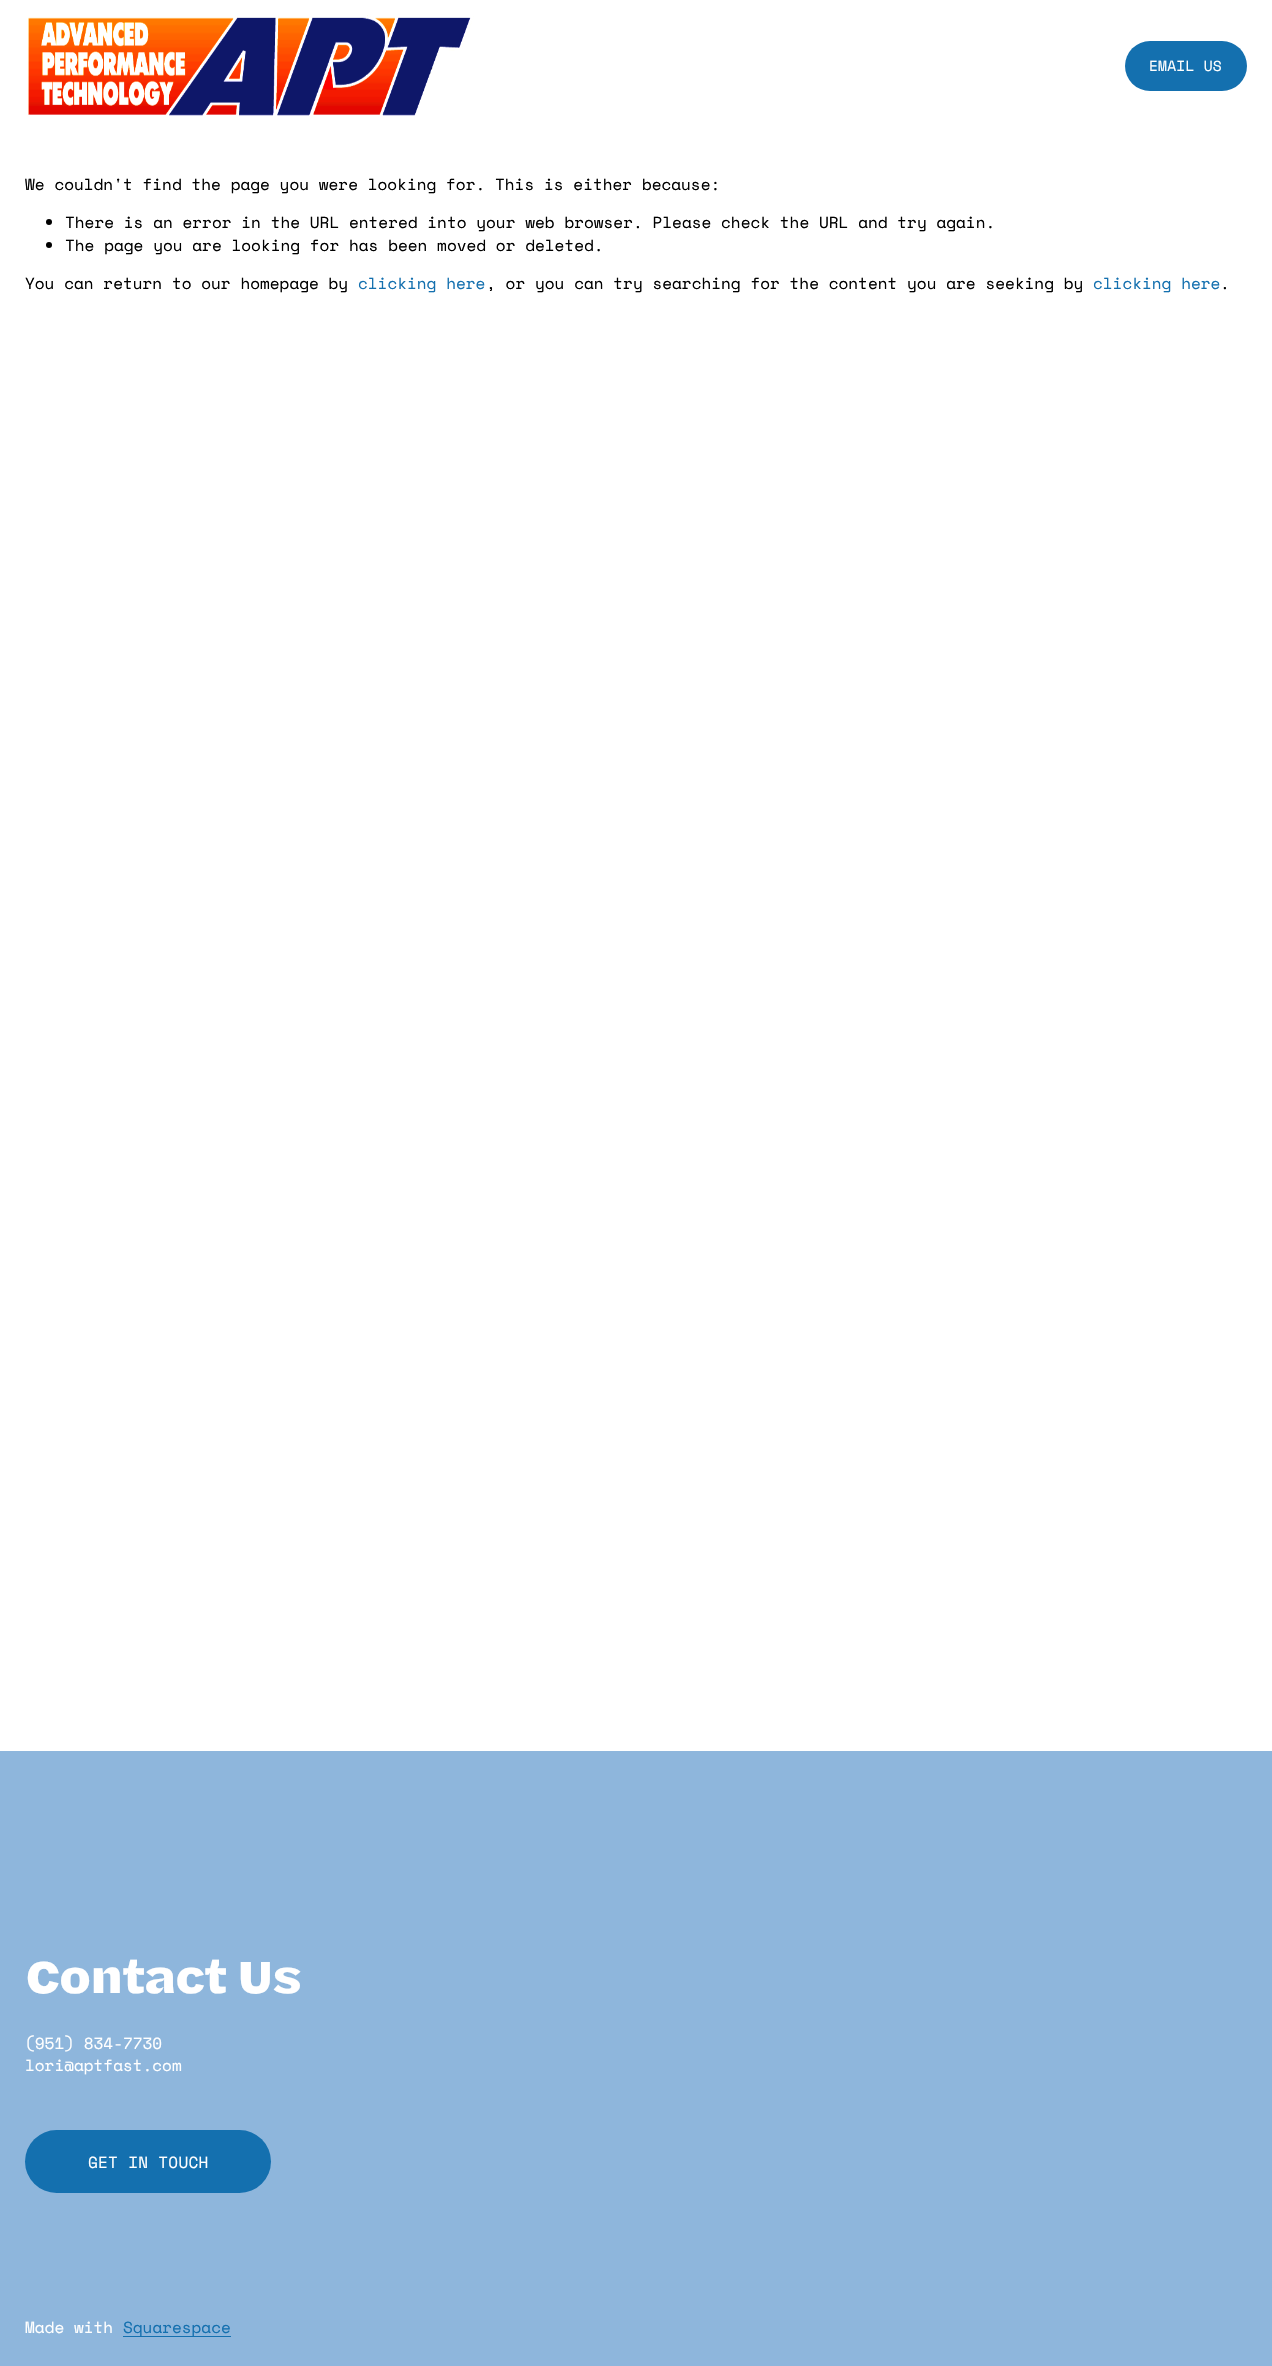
void draw(SkCanvas* canvas) {
    SkPaint paint;
    paint.setAntiAlias(true);
    auto face = [&](const char* family, int weight, float size, bool italic = false) {
        SkFontStyle style(weight, SkFontStyle::kNormal_Width,
            italic ? SkFontStyle::kItalic_Slant : SkFontStyle::kUpright_Slant);
        SkFont result(fontMgr->matchFamilyStyle(family, style), size);
        result.setSubpixel(true);
        return result;
    };
    auto write = [&](const char* s, float x, float y, const SkFont& font, SkColor color) {
        SkPaint ink(SkColor4f::FromColor(color));
        ink.setAntiAlias(true);
        canvas->drawString(s, x, y, font, ink);
    };
    auto writeSpaced = [&](const char* s, float x, float y, const SkFont& font, const SkPaint& ink, float letter, float word) {
        std::vector<SkGlyphID> glyphs(font.countText(s, strlen(s), SkTextEncoding::kUTF8));
        std::vector<float> xs(glyphs.size());
        font.textToGlyphs(s, strlen(s), SkTextEncoding::kUTF8, glyphs);
        font.getXPos(glyphs, xs, x);
        float extra = 0;
        for (size_t i = 0; i < glyphs.size(); i++) {
            xs[i] += extra;
            extra += letter + word * (glyphs[i] == font.unicharToGlyph(' '));
        }
        canvas->drawTextBlob(SkTextBlob::MakeFromPosHGlyphs(glyphs, xs, y, font), 0, 0, ink);
    };
    auto block = [&](float x, float y, float w, float h, SkColor color) {
        SkPaint ink(SkColor4f::FromColor(color));
        ink.setAntiAlias(true);
        canvas->drawRect(SkRect::MakeXYWH(x, y, w, h), ink);
    };
    auto card = [&](float x, float y, float w, float h, float radius, SkColor color) {
        SkPaint ink(SkColor4f::FromColor(color));
        ink.setAntiAlias(true);
        canvas->drawRoundRect(SkRect::MakeXYWH(x, y, w, h), radius, radius, ink);
    };
    auto paste = [&](const char* path, float x, float y, float w, float h) {
        auto image = SkImages::DeferredFromEncodedData(SkData::MakeFromFileName(path));
        canvas->drawImageRect(image, SkRect::MakeXYWH(x, y, w, h), SkSamplingOptions());
    };
    canvas->clear(SK_ColorWHITE);
    paste("pic1.png", 28, 15, 446, 103);
    card(1125, 41, 122, 50, 25, SkColorSetRGB(20, 112, 175));
    auto kFont1 = face("Space Mono", 400, 14.5f);
    paint.setColor(SK_ColorWHITE);
    writeSpaced("EMAIL US", 1149, 71, kFont1, paint, 0.25f, 0);
    auto kFont2 = face("Space Mono", 400, 16);
    write("We couldn't find the page you were looking for. This is either because:", 25, 190, kFont2, SK_ColorBLACK);
    paint.setColor(SK_ColorBLACK);
    canvas->drawCircle(49, 222, 3, paint);
    write("There is an error in the URL entered into your web browser. Please check the URL and try again.", 65, 228, kFont2, SK_ColorBLACK);
    canvas->drawCircle(49, 245, 3, paint);
    write("The page you are looking for has been moved or deleted.", 65, 251, kFont2, SK_ColorBLACK);
    write("You can return to our homepage by", 25, 289, kFont2, SK_ColorBLACK);
    write("clicking here", 358, 289, kFont2, SkColorSetRGB(20, 112, 175));
    write(", or you can try searching for the content you are seeking by", 486, 289, kFont2, SK_ColorBLACK);
    write("clicking here", 1093, 289, kFont2, SkColorSetRGB(20, 112, 175));
    write(".", 1220, 289, kFont2, SK_ColorBLACK);
    block(0, 1751, 1272, 615, SkColorSetRGB(142, 182, 220));
    auto kFont3 = face("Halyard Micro", 700, 46.5f);
    paint.setColor(SK_ColorWHITE);
    writeSpaced("Contact Us", 25, 1993, kFont3, paint, -2.25f, 0);
    write("(951) 834-7730", 25, 2049, kFont2, SK_ColorWHITE);
    write("lori@aptfast.com", 25, 2071, kFont2, SK_ColorWHITE);
    card(25, 2130, 246, 63, 31.5f, SkColorSetRGB(20, 112, 175));
    writeSpaced("GET IN TOUCH", 88, 2168, kFont2, paint, 0.25f, 0);
    write("Made with", 25, 2333, kFont2, SK_ColorWHITE);
    block(123, 2336, 108, 1, SkColorSetRGB(20, 112, 175));
    write("Squarespace", 123, 2333, kFont2, SkColorSetRGB(20, 112, 175));
}
